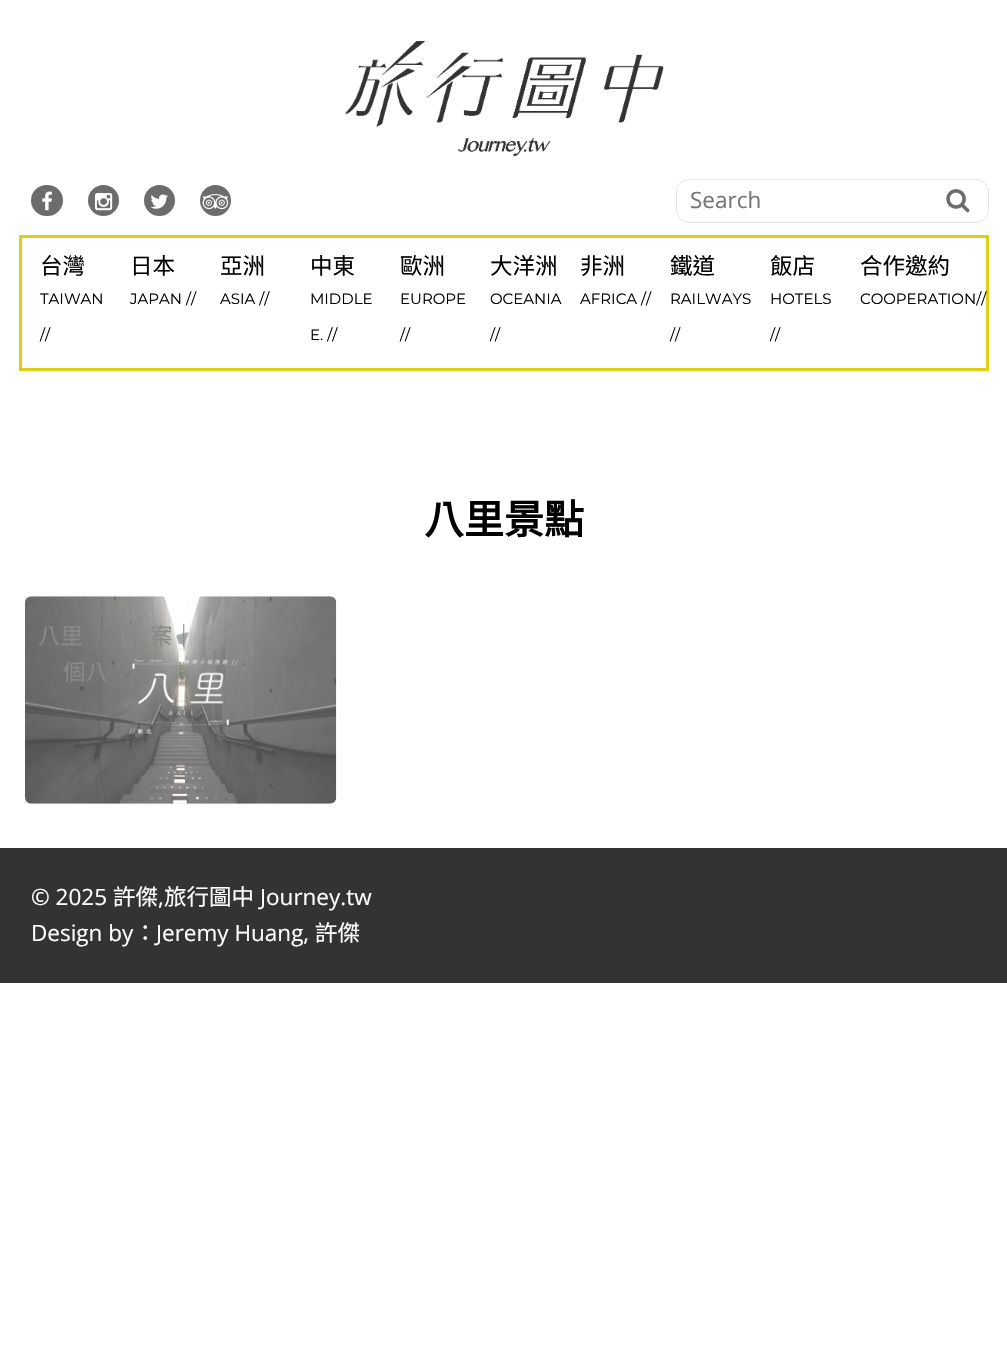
void draw(SkCanvas* canvas) {
    SkPaint paint;
    paint.setAntiAlias(true);
    auto face = [&](const char* family, int weight, float size, bool italic = false) {
        SkFontStyle style(weight, SkFontStyle::kNormal_Width,
            italic ? SkFontStyle::kItalic_Slant : SkFontStyle::kUpright_Slant);
        SkFont result(fontMgr->matchFamilyStyle(family, style), size);
        result.setSubpixel(true);
        return result;
    };
    auto write = [&](const char* s, float x, float y, const SkFont& font, SkColor color) {
        SkPaint ink(SkColor4f::FromColor(color));
        ink.setAntiAlias(true);
        canvas->drawString(s, x, y, font, ink);
    };
    auto block = [&](float x, float y, float w, float h, SkColor color) {
        SkPaint ink(SkColor4f::FromColor(color));
        ink.setAntiAlias(true);
        canvas->drawRect(SkRect::MakeXYWH(x, y, w, h), ink);
    };
    auto card = [&](float x, float y, float w, float h, float radius, SkColor color) {
        SkPaint ink(SkColor4f::FromColor(color));
        ink.setAntiAlias(true);
        canvas->drawRoundRect(SkRect::MakeXYWH(x, y, w, h), radius, radius, ink);
    };
    auto paste = [&](const char* path, float x, float y, float w, float h) {
        auto image = SkImages::DeferredFromEncodedData(SkData::MakeFromFileName(path));
        canvas->drawImageRect(image, SkRect::MakeXYWH(x, y, w, h), SkSamplingOptions());
    };
    canvas->clear(SK_ColorWHITE);
    paste("pic1.png", 345, 41, 319, 116);
    card(31, 185, 32, 31, 15.5f, SkColorSetRGB(108, 108, 108));
    paste("pic2.png", 42, 191, 10, 20);
    paint.setColor(SkColorSetRGB(108, 108, 108));
    canvas->drawCircle(103.5f, 200.5f, 15.5f, paint);
    paste("pic3.png", 95, 193, 18, 18);
    canvas->drawCircle(159.5f, 200.5f, 15.5f, paint);
    paste("pic4.png", 150, 194, 18, 15);
    canvas->drawCircle(215.5f, 200.5f, 15.5f, paint);
    paste("pic5.png", 202, 194, 27, 16);
    paint.setStyle(SkPaint::kStroke_Style);
    paint.setStrokeWidth(1);
    paint.setColor(SkColorSetRGB(229, 229, 229));
    canvas->drawRoundRect(SkRect::MakeXYWH(676.5f, 179.5f, 312, 43), 12.5f, 12.5f, paint);
    auto kFont1 = face("Open Sans", 400, 22.5f);
    write("Search", 690, 208, kFont1, SkColorSetRGB(117, 117, 117));
    paste("pic6.png", 946, 189, 24, 24);
    paint.setStrokeWidth(3);
    paint.setColor(SkColorSetRGB(224, 208, 20));
    canvas->drawRect(SkRect::MakeXYWH(20.5f, 236.5f, 967, 133), paint);
    auto kFont2 = face("Noto Sans CJK TC", 400, 22.5f);
    write("台灣", 40, 274, kFont2, SK_ColorBLACK);
    auto kFont3 = face("Montserrat", 400, 15);
    write("TAIWAN", 40, 304, kFont3, SK_ColorBLACK);
    write("//", 40, 340, kFont3, SK_ColorBLACK);
    write("日本", 130, 274, kFont2, SK_ColorBLACK);
    write("JAPAN //", 130, 304, kFont3, SK_ColorBLACK);
    write("亞洲", 220, 274, kFont2, SK_ColorBLACK);
    write("ASIA //", 220, 304, kFont3, SK_ColorBLACK);
    write("中東", 310, 274, kFont2, SK_ColorBLACK);
    write("MIDDLE", 310, 304, kFont3, SK_ColorBLACK);
    write("E. //", 310, 340, kFont3, SK_ColorBLACK);
    write("歐洲", 400, 274, kFont2, SK_ColorBLACK);
    write("EUROPE", 400, 304, kFont3, SK_ColorBLACK);
    write("//", 400, 340, kFont3, SK_ColorBLACK);
    write("大洋洲", 490, 274, kFont2, SK_ColorBLACK);
    write("OCEANIA", 490, 304, kFont3, SK_ColorBLACK);
    write("//", 490, 340, kFont3, SK_ColorBLACK);
    write("非洲", 580, 274, kFont2, SK_ColorBLACK);
    write("AFRICA //", 580, 304, kFont3, SK_ColorBLACK);
    write("鐵道", 670, 274, kFont2, SK_ColorBLACK);
    write("RAILWAYS", 670, 304, kFont3, SK_ColorBLACK);
    write("//", 670, 340, kFont3, SK_ColorBLACK);
    write("飯店", 770, 274, kFont2, SK_ColorBLACK);
    write("HOTELS", 770, 304, kFont3, SK_ColorBLACK);
    write("//", 770, 340, kFont3, SK_ColorBLACK);
    write("合作邀約", 860, 274, kFont2, SK_ColorBLACK);
    write("COOPERATION//", 860, 304, kFont3, SK_ColorBLACK);
    auto kFont4 = face("Noto Sans CJK TC", 700, 40);
    write("八里景點", 424, 534, kFont4, SK_ColorBLACK);
    paste("pic7.png", 25, 596, 312, 208);
    write("八里", 38, 644, kFont2, SkColorSetRGB(137, 137, 135));
    write("案｜", 150, 644, kFont2, SkColorSetRGB(137, 137, 135));
    write("個八", 63, 680, kFont2, SkColorSetRGB(137, 137, 135));
    block(0, 848, 1007, 135, SkColorSetRGB(51, 51, 51));
    write("© 2025", 31, 905, kFont1, SK_ColorWHITE);
    write("許傑", 113, 905, kFont2, SK_ColorWHITE);
    write(",", 158, 905, kFont1, SK_ColorWHITE);
    write("旅行圖中", 164, 905, kFont2, SK_ColorWHITE);
    write("Journey.tw", 260, 905, kFont1, SK_ColorWHITE);
    write("Design by", 31, 941, kFont1, SK_ColorWHITE);
    write("：", 134, 941, kFont2, SK_ColorWHITE);
    write("Jeremy Huang,", 156, 941, kFont1, SK_ColorWHITE);
    write("許傑", 315, 941, kFont2, SK_ColorWHITE);
}
